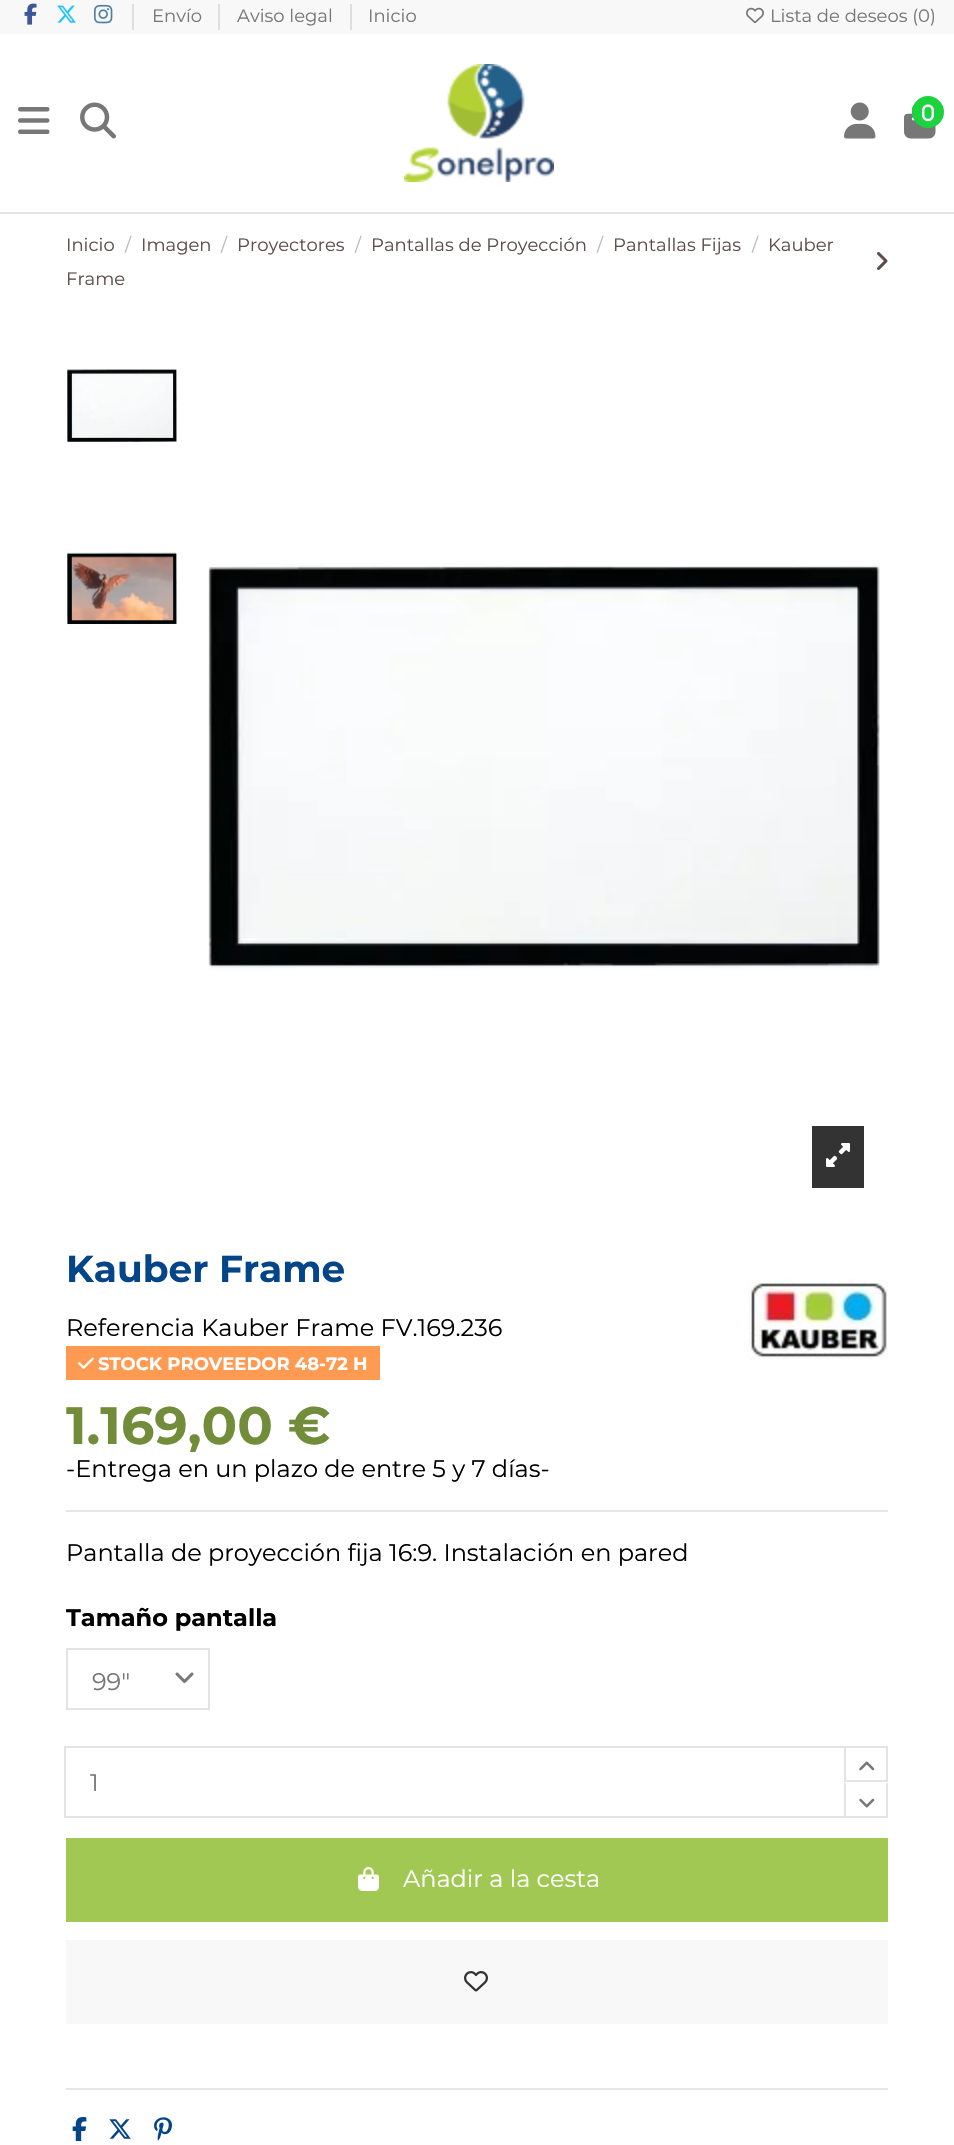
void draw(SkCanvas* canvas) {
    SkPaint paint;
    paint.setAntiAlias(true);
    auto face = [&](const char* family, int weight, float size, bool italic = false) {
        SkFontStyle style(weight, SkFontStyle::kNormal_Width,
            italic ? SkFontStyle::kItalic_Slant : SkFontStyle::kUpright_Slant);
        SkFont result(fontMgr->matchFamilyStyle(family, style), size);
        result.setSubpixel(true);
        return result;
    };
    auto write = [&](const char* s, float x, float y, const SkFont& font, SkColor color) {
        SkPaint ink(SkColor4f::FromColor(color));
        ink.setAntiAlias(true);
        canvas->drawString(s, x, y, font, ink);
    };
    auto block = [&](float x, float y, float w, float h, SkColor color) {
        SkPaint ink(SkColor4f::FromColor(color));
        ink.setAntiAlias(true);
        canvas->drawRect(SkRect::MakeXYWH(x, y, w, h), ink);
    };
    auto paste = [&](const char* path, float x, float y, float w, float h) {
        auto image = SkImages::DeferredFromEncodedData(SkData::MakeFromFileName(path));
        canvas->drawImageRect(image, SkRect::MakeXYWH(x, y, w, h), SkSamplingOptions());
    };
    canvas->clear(SK_ColorWHITE);
    block(0, 0, 954, 34, SkColorSetRGB(248, 248, 248));
    paste("pic1.png", 24, 3, 13, 22);
    paste("pic2.png", 57, 5, 19, 18);
    paste("pic3.png", 94, 4, 19, 20);
    block(132, 4, 2, 26, SkColorSetRGB(222, 222, 222));
    auto kFont1 = face("Montserrat", 400, 18);
    write("Envío", 152, 22, kFont1, SkColorSetRGB(119, 119, 119));
    block(218, 4, 2, 26, SkColorSetRGB(222, 222, 222));
    write("Aviso legal", 237, 22, kFont1, SkColorSetRGB(119, 119, 119));
    block(350, 4, 2, 26, SkColorSetRGB(222, 222, 222));
    write("Inicio", 368, 22, kFont1, SkColorSetRGB(119, 119, 119));
    paste("pic4.png", 746, 7, 18, 17);
    write("Lista de deseos (0)", 770, 22, kFont1, SkColorSetRGB(119, 119, 119));
    block(0, 212, 954, 2, SkColorSetRGB(227, 227, 227));
    paste("pic5.png", 18, 107, 32, 27);
    paste("pic6.png", 80, 102, 36, 37);
    paste("pic7.png", 404, 64, 150, 118);
    paste("pic8.png", 844, 102, 32, 37);
    paste("pic10.png", 904, 104, 32, 35);
    paint.setColor(SkColorSetRGB(27, 211, 63));
    canvas->drawCircle(928, 112, 16, paint);
    paste("pic9.png", 922, 104, 12, 18);
    write("Inicio", 66, 251, kFont1, SkColorSetRGB(93, 76, 76));
    write("/", 125, 251, kFont1, SkColorSetRGB(190, 183, 183));
    write("Imagen", 141, 251, kFont1, SkColorSetRGB(93, 76, 76));
    write("/", 221, 251, kFont1, SkColorSetRGB(190, 183, 183));
    write("Proyectores", 237, 251, kFont1, SkColorSetRGB(93, 76, 76));
    write("/", 355, 251, kFont1, SkColorSetRGB(190, 183, 183));
    write("Pantallas de Proyección", 371, 251, kFont1, SkColorSetRGB(93, 76, 76));
    write("/", 597, 251, kFont1, SkColorSetRGB(190, 183, 183));
    write("Pantallas Fijas", 613, 251, kFont1, SkColorSetRGB(93, 76, 76));
    write("/", 752, 251, kFont1, SkColorSetRGB(190, 183, 183));
    write("Kauber", 768, 251, kFont1, SkColorSetRGB(93, 76, 76));
    write("Frame", 66, 285, kFont1, SkColorSetRGB(93, 76, 76));
    paste("pic11.png", 877, 252, 11, 18);
    paste("pic12.png", 67, 369, 110, 73);
    paste("pic13.png", 67, 552, 110, 73);
    paste("pic14.png", 208, 563, 672, 408);
    block(812, 1126, 52, 62, SkColorSetRGB(51, 51, 51));
    paste("pic15.png", 826, 1143, 24, 24);
    block(66, 1510, 822, 2, SkColorSetRGB(231, 231, 231));
    auto kFont2 = face("Montserrat", 700, 37.5f);
    write("Kauber Frame", 66, 1282, kFont2, SkColorSetRGB(3, 69, 136));
    auto kFont3 = face("Montserrat", 400, 24);
    write("Referencia Kauber Frame FV.169.236", 66, 1336, kFont3, SK_ColorBLACK);
    block(66, 1346, 314, 34, SkColorSetRGB(255, 154, 82));
    paste("pic16.png", 78, 1357, 16, 12);
    auto kFont4 = face("Montserrat", 700, 18);
    write("STOCK PROVEEDOR 48-72 H", 98, 1370, kFont4, SK_ColorWHITE);
    auto kFont5 = face("Montserrat", 700, 52.5f);
    write("1.169,00 €", 66, 1444, kFont5, SkColorSetRGB(113, 141, 58));
    write("-Entrega en un plazo de entre 5 y 7 días-", 66, 1477, kFont3, SK_ColorBLACK);
    paste("pic17.png", 748, 1279, 140, 81);
    write("Pantalla de proyección fija 16:9. Instalación en pared", 66, 1561, kFont3, SK_ColorBLACK);
    auto kFont6 = face("Montserrat", 700, 24);
    write("Tamaño pantalla", 66, 1626, kFont6, SK_ColorBLACK);
    paste("pic18.png", 175, 1672, 19, 11);
    paint.setStyle(SkPaint::kStroke_Style);
    paint.setStrokeWidth(2);
    paint.setColor(SkColorSetRGB(227, 227, 227));
    canvas->drawRect(SkRect::MakeXYWH(67, 1649, 142, 60), paint);
    write("99\"", 92, 1690, kFont3, SkColorSetRGB(119, 119, 119));
    canvas->drawRect(SkRect::MakeXYWH(65, 1747, 782, 70), paint);
    write("1", 90, 1791, kFont3, SkColorSetRGB(119, 119, 119));
    block(846, 1748, 2, 32, SK_ColorWHITE);
    canvas->drawRect(SkRect::MakeXYWH(845, 1747, 42, 34), paint);
    paste("pic19.png", 859, 1761, 16, 10);
    block(846, 1782, 2, 34, SK_ColorWHITE);
    paint.setStyle(SkPaint::kFill_Style);
    canvas->drawPath(SkPathBuilder().moveTo(888, 1782).lineTo(888, 1818).lineTo(886, 1816).lineTo(886, 1784).close().detach(), paint);
    block(844, 1816, 44, 2, SkColorSetRGB(227, 227, 227));
    canvas->drawPath(SkPathBuilder().moveTo(844, 1818).lineTo(844, 1782).lineTo(846, 1784).lineTo(846, 1816).close().detach(), paint);
    paste("pic20.png", 859, 1798, 16, 10);
    block(66, 1838, 822, 84, SkColorSetRGB(160, 200, 82));
    paste("pic21.png", 358, 1867, 21, 24);
    write("Añadir a la cesta", 403, 1887, kFont3, SK_ColorWHITE);
    block(66, 1940, 822, 84, SkColorSetRGB(248, 248, 248));
    paste("pic22.png", 464, 1971, 24, 21);
    block(66, 2088, 822, 2, SkColorSetRGB(231, 231, 231));
    paste("pic23.png", 72, 2117, 15, 24);
    paste("pic24.png", 109, 2119, 22, 20);
    paste("pic25.png", 154, 2117, 18, 24);
}
